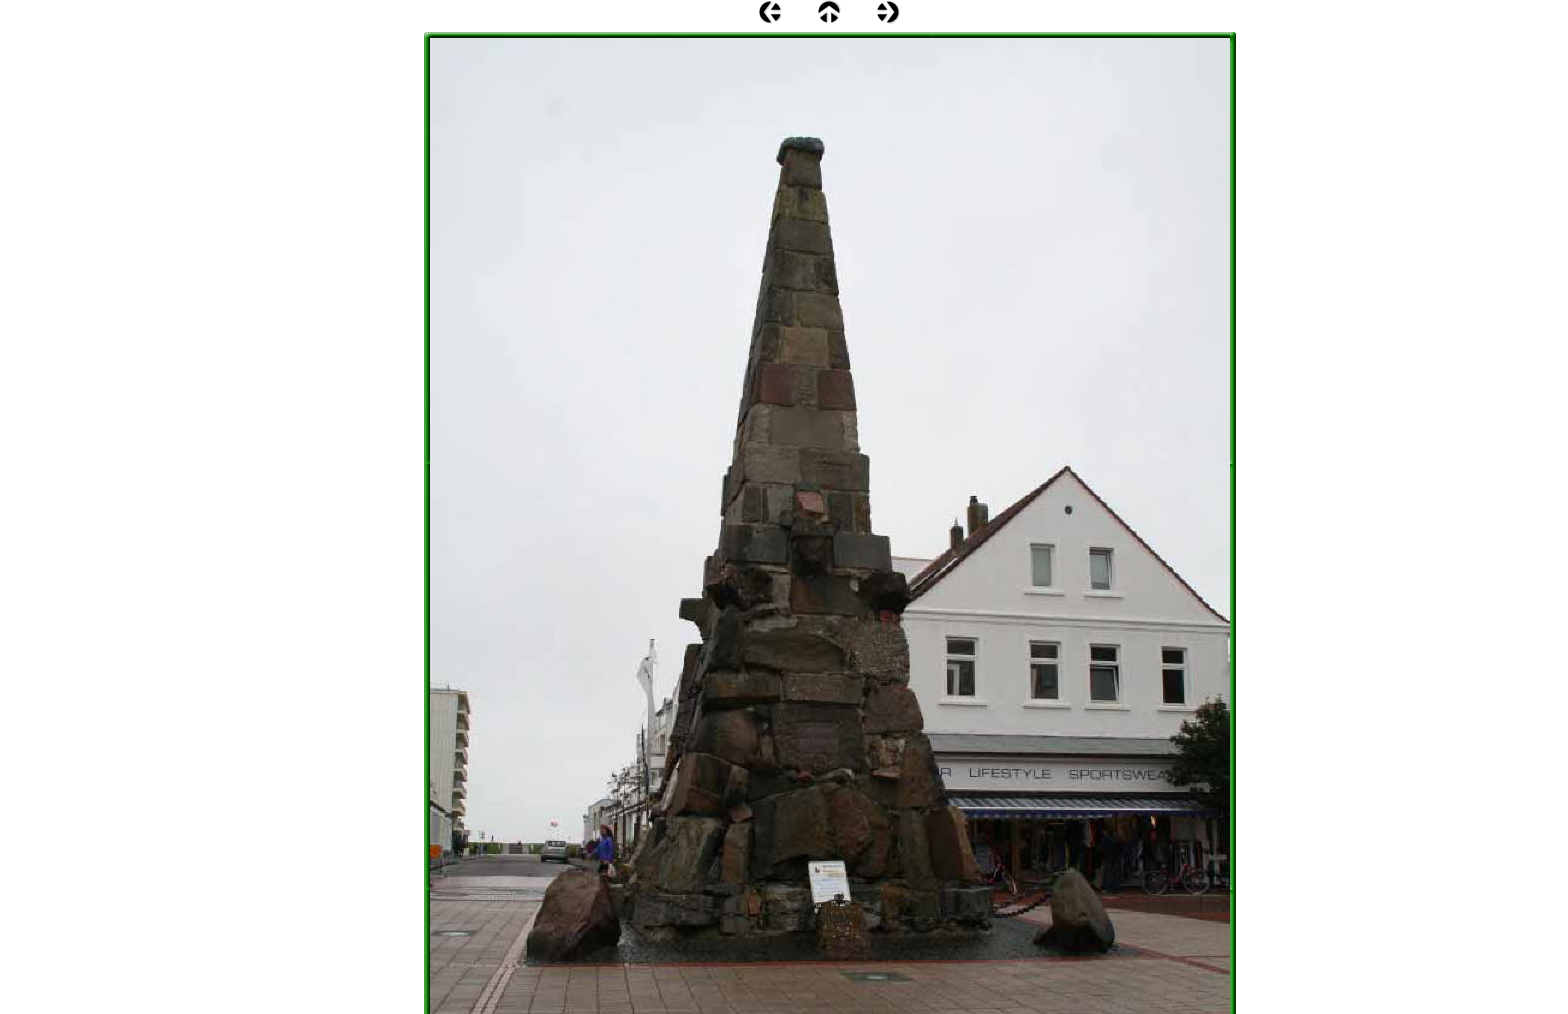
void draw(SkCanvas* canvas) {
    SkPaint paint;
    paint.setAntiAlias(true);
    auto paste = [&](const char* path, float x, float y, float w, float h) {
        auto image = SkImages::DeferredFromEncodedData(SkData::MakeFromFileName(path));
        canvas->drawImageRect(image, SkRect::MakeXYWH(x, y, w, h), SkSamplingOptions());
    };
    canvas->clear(SK_ColorWHITE);
    paste("pic1.png", 759, 1, 23, 23);
    paste("pic2.png", 818, 0, 23, 23);
    paste("pic3.png", 877, 1, 23, 23);
    paste("pic4.png", 424, 32, 6, 6);
    paste("pic5.png", 430, 32, 800, 6);
    paste("pic6.png", 1230, 32, 6, 6);
    paste("pic7.png", 424, 38, 6, 976);
    paste("pic8.png", 430, 38, 800, 976);
    paste("pic9.png", 1230, 38, 6, 976);
}
